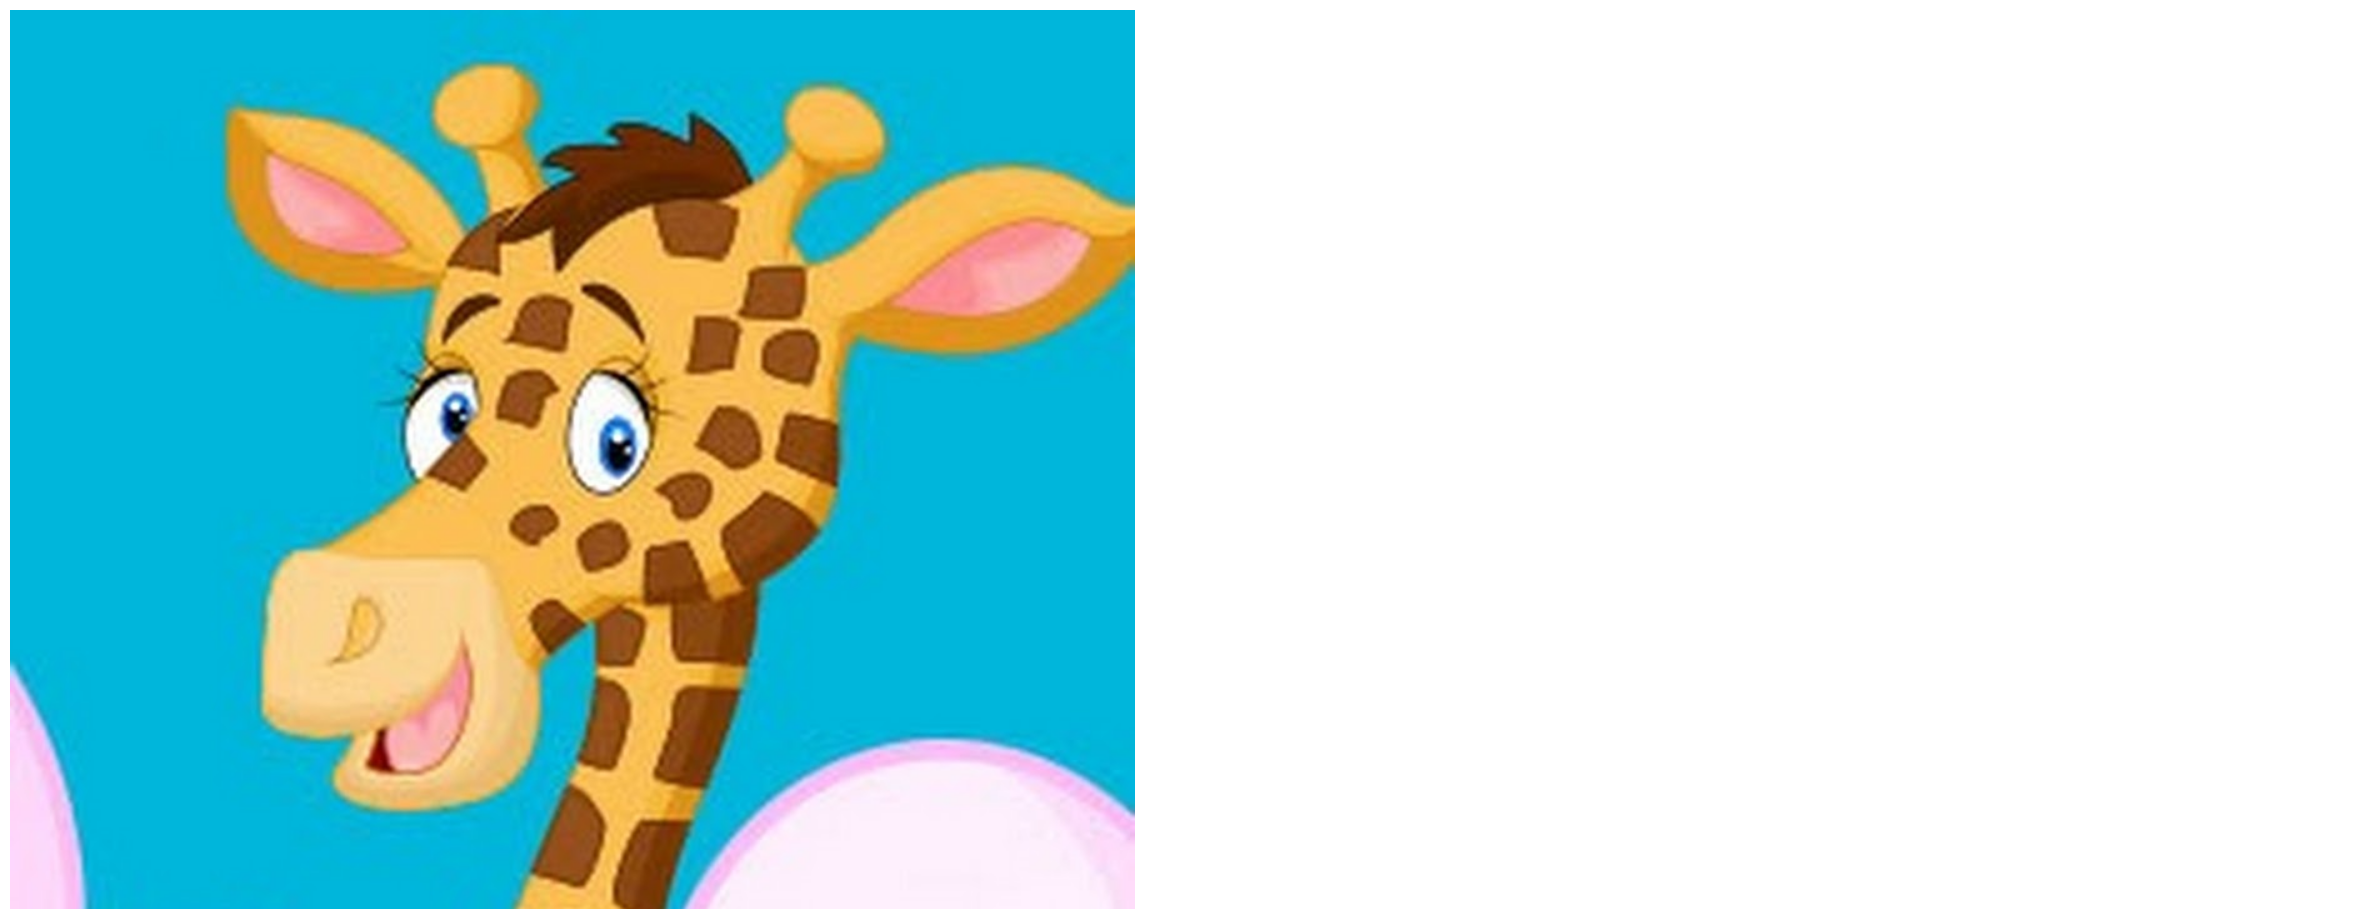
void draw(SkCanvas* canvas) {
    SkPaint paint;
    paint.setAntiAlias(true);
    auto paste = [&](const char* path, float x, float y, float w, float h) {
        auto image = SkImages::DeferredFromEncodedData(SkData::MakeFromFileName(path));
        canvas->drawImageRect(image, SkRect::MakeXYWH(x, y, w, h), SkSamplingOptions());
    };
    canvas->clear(SK_ColorWHITE);
    paste("pic1.png", 10, 10, 1125, 899);
}
